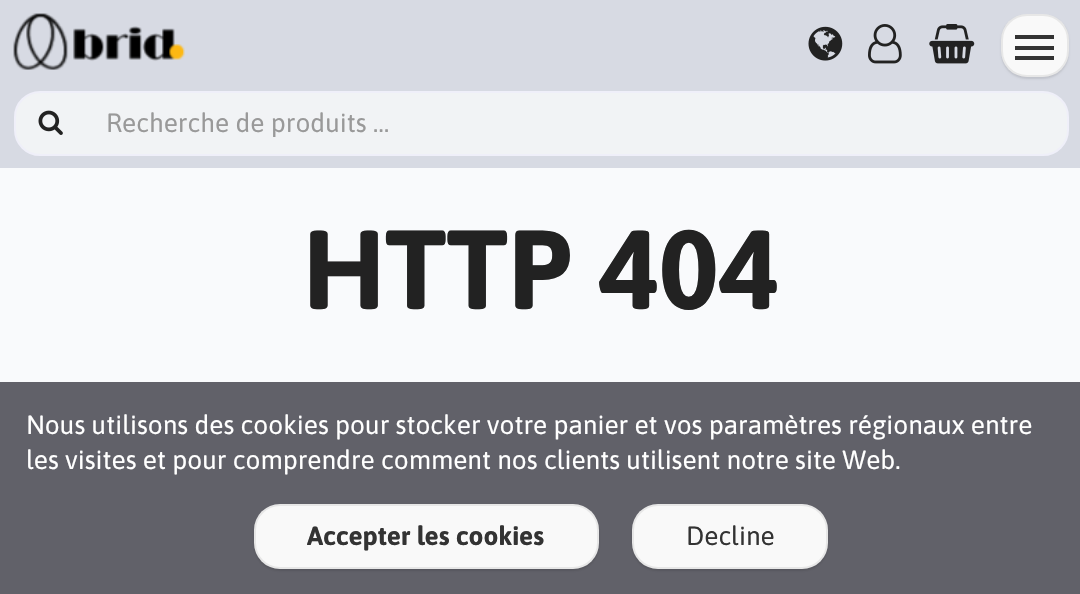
void draw(SkCanvas* canvas) {
    SkPaint paint;
    paint.setAntiAlias(true);
    auto face = [&](const char* family, int weight, float size, bool italic = false) {
        SkFontStyle style(weight, SkFontStyle::kNormal_Width,
            italic ? SkFontStyle::kItalic_Slant : SkFontStyle::kUpright_Slant);
        SkFont result(fontMgr->matchFamilyStyle(family, style), size);
        result.setSubpixel(true);
        return result;
    };
    auto write = [&](const char* s, float x, float y, const SkFont& font, SkColor color) {
        SkPaint ink(SkColor4f::FromColor(color));
        ink.setAntiAlias(true);
        canvas->drawString(s, x, y, font, ink);
    };
    auto block = [&](float x, float y, float w, float h, SkColor color) {
        SkPaint ink(SkColor4f::FromColor(color));
        ink.setAntiAlias(true);
        canvas->drawRect(SkRect::MakeXYWH(x, y, w, h), ink);
    };
    auto card = [&](float x, float y, float w, float h, float radius, SkColor color) {
        SkPaint ink(SkColor4f::FromColor(color));
        ink.setAntiAlias(true);
        canvas->drawRoundRect(SkRect::MakeXYWH(x, y, w, h), radius, radius, ink);
    };
    auto paste = [&](const char* path, float x, float y, float w, float h) {
        auto image = SkImages::DeferredFromEncodedData(SkData::MakeFromFileName(path));
        canvas->drawImageRect(image, SkRect::MakeXYWH(x, y, w, h), SkSamplingOptions());
    };
    canvas->clear(SkColorSetRGB(249, 250, 252));
    block(0, 0, 1080, 168, SkColorSetRGB(215, 218, 227));
    paste("pic1.png", 13, 13, 172, 57);
    paste("pic2.png", 808, 26, 35, 35);
    paste("pic3.png", 868, 24, 34, 40);
    paste("pic4.png", 929, 24, 46, 40);
    paint.setColor(SkColorSetARGB(26, 0, 0, 0));
    paint.setMaskFilter(SkMaskFilter::MakeBlur(kNormal_SkBlurStyle, 1));
    canvas->drawRoundRect(SkRect::MakeXYWH(1001, 16, 68, 63), 26, 26, paint);
    paint.setMaskFilter(nullptr);
    card(1001, 14, 68, 63, 26, SkColorSetRGB(249, 249, 249));
    paint.setStyle(SkPaint::kStroke_Style);
    paint.setStrokeWidth(2);
    paint.setColor(SkColorSetARGB(18, 0, 0, 0));
    canvas->drawRoundRect(SkRect::MakeXYWH(1002, 15, 66, 61), 25, 25, paint);
    block(1015, 35, 39, 4, SkColorSetRGB(51, 51, 51));
    block(1015, 46, 39, 4, SkColorSetRGB(51, 51, 51));
    block(1015, 56, 39, 4, SkColorSetRGB(51, 51, 51));
    paint.setStyle(SkPaint::kFill_Style);
    paint.setColor(SkColorSetRGB(241, 243, 245));
    canvas->drawRoundRect(SkRect::MakeXYWH(15, 92, 1053, 63), 25, 25, paint);
    paint.setStyle(SkPaint::kStroke_Style);
    paint.setColor(SkColorSetRGB(239, 239, 249));
    canvas->drawRoundRect(SkRect::MakeXYWH(15, 92, 1053, 63), 25, 25, paint);
    paste("pic5.png", 38, 110, 25, 25);
    canvas->save();
    canvas->clipRect(SkRect::MakeXYWH(107, 107, 898, 30));
    auto kFont1 = face("Asap", 400, 26.25f);
    write("Recherche de produits …", 106, 132, kFont1, SkColorSetRGB(153, 153, 153));
    canvas->restore();
    auto kFont2 = face("Asap", 700, 112);
    write("HTTP 404", 303, 309, kFont2, SkColorSetRGB(34, 34, 34));
    block(0, 382, 1080, 212, SkColorSetARGB(191, 45, 45, 56));
    write("Nous utilisons des cookies pour stocker votre panier et vos paramètres régionaux entre", 26, 434, kFont1, SK_ColorWHITE);
    write("les visites et pour comprendre comment nos clients utilisent notre site Web.", 26, 469, kFont1, SK_ColorWHITE);
    paint.setStyle(SkPaint::kFill_Style);
    paint.setColor(SkColorSetARGB(26, 0, 0, 0));
    paint.setMaskFilter(SkMaskFilter::MakeBlur(kNormal_SkBlurStyle, 1));
    canvas->drawRoundRect(SkRect::MakeXYWH(254, 506, 345, 65), 26, 26, paint);
    paint.setMaskFilter(nullptr);
    card(254, 504, 345, 65, 26, SkColorSetRGB(249, 249, 249));
    paint.setStyle(SkPaint::kStroke_Style);
    paint.setColor(SkColorSetARGB(18, 0, 0, 0));
    canvas->drawRoundRect(SkRect::MakeXYWH(255, 505, 343, 63), 25, 25, paint);
    auto kFont3 = face("Asap", 700, 26.25f);
    write("Accepter les cookies", 307, 545, kFont3, SkColorSetRGB(51, 51, 51));
    paint.setStyle(SkPaint::kFill_Style);
    paint.setColor(SkColorSetARGB(26, 0, 0, 0));
    paint.setMaskFilter(SkMaskFilter::MakeBlur(kNormal_SkBlurStyle, 1));
    canvas->drawRoundRect(SkRect::MakeXYWH(632, 506, 196, 65), 26, 26, paint);
    paint.setMaskFilter(nullptr);
    card(632, 504, 196, 65, 26, SkColorSetRGB(249, 249, 249));
    paint.setStyle(SkPaint::kStroke_Style);
    paint.setColor(SkColorSetARGB(18, 0, 0, 0));
    canvas->drawRoundRect(SkRect::MakeXYWH(633, 505, 194, 63), 25, 25, paint);
    write("Decline", 686, 545, kFont1, SkColorSetRGB(51, 51, 51));
}
